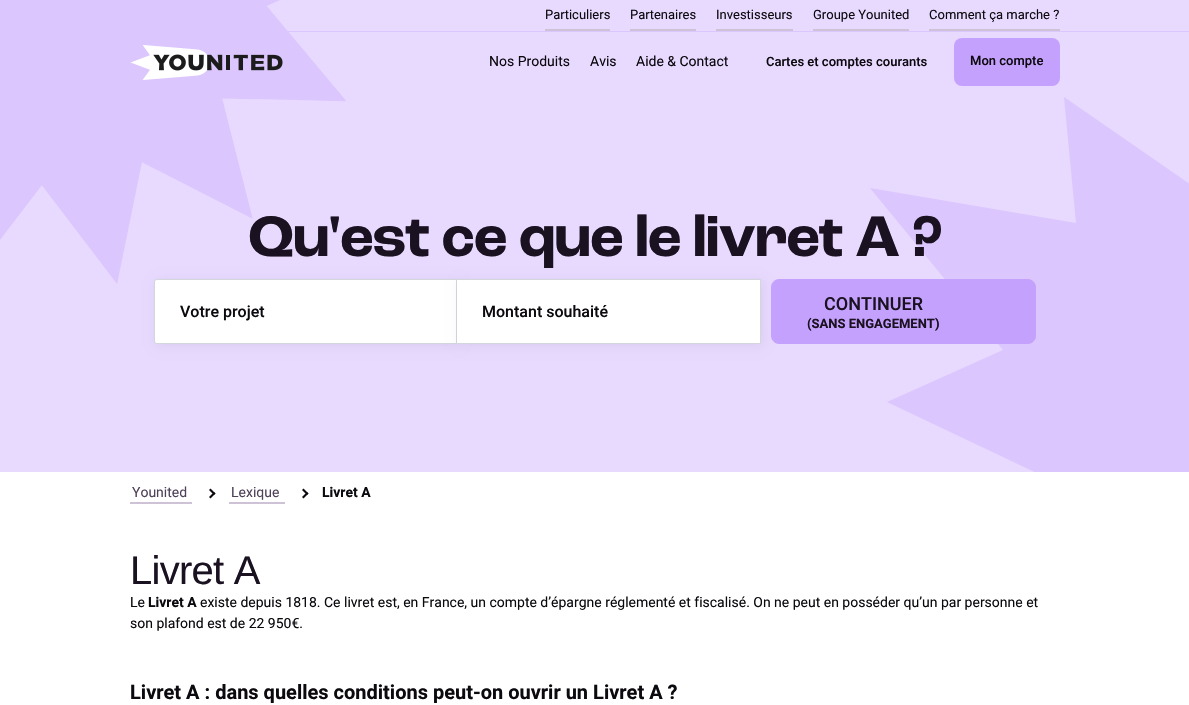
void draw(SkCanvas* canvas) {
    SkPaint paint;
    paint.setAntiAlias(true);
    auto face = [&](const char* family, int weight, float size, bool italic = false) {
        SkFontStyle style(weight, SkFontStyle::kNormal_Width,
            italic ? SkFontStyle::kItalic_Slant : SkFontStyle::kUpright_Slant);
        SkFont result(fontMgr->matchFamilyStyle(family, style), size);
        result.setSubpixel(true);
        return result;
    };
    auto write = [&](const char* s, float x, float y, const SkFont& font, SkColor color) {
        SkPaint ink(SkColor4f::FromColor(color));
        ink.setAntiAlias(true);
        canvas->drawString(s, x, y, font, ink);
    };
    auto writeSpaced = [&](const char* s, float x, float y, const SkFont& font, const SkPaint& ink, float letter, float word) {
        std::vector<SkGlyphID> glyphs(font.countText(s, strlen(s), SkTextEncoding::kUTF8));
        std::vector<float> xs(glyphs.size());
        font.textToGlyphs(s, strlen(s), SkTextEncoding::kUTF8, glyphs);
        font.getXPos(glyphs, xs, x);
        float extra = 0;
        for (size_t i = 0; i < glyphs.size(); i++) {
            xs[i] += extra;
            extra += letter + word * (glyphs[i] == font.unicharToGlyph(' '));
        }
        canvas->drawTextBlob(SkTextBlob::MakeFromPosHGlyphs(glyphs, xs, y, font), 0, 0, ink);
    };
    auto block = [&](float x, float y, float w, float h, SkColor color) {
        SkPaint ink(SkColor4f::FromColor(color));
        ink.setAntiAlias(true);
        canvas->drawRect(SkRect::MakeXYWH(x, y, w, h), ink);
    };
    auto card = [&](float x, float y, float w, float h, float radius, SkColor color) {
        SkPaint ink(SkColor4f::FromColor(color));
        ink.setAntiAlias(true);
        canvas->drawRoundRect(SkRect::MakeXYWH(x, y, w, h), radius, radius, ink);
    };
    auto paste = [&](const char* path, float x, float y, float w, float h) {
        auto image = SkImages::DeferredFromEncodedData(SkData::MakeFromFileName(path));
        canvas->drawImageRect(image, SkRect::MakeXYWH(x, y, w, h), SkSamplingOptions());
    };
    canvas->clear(SkColorSetRGB(232, 217, 255));
    paste("pic1.png", 0, 0, 346, 284);
    block(288, 31, 901, 1, SkColorSetRGB(220, 198, 254));
    block(545, 29, 65, 2, SkColorSetRGB(206, 194, 214));
    auto kFont1 = face("Roboto", 400, 13);
    write("Particuliers", 545, 19, kFont1, SkColorSetRGB(13, 10, 15));
    block(630, 29, 66, 2, SkColorSetRGB(206, 194, 214));
    write("Partenaires", 630, 19, kFont1, SkColorSetRGB(13, 10, 15));
    block(716, 29, 77, 2, SkColorSetRGB(206, 194, 214));
    write("Investisseurs", 716, 19, kFont1, SkColorSetRGB(13, 10, 15));
    block(813, 29, 96, 2, SkColorSetRGB(206, 194, 214));
    write("Groupe Younited", 813, 19, kFont1, SkColorSetRGB(13, 10, 15));
    block(929, 29, 131, 2, SkColorSetRGB(206, 194, 214));
    write("Comment ça marche ?", 929, 19, kFont1, SkColorSetRGB(13, 10, 15));
    paste("pic2.png", 130, 45, 153, 35);
    auto kFont2 = face("Roboto", 400, 14);
    write("Nos Produits", 489, 66, kFont2, SkColorSetRGB(13, 10, 15));
    write("Avis", 590, 66, kFont2, SkColorSetRGB(13, 10, 15));
    write("Aide & Contact", 636, 66, kFont2, SkColorSetRGB(13, 10, 15));
    auto kFont3 = face("Roboto", 500, 13);
    write("Cartes et comptes courants", 766, 66, kFont3, SkColorSetRGB(13, 10, 15));
    card(954, 38, 106, 48, 8, SkColorSetRGB(197, 161, 254));
    write("Mon compte", 970, 65, kFont3, SkColorSetRGB(13, 10, 15));
    paint.setColor(SkColorSetRGB(220, 198, 254));
    canvas->drawPath(SkPathBuilder().moveTo(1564, 589).cubicTo(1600, 527, 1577, 451, 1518, 411).lineTo(1064, 97).lineTo(1076, 223).lineTo(870, 188).lineTo(1003, 350).lineTo(887, 402).lineTo(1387, 639).cubicTo(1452, 668, 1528, 652, 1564, 590).detach(), paint);
    auto kFont4 = face("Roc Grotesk", 700, 60);
    paint.setColor(SkColorSetRGB(27, 18, 33));
    writeSpaced("Qu'est ce que le livret A ?", 248, 256, kFont4, paint, -1.2f, 0);
    paint.setColor(SkColorSetARGB(15, 0, 0, 0));
    paint.setMaskFilter(SkMaskFilter::MakeBlur(kNormal_SkBlurStyle, 5));
    canvas->drawRect(SkRect::MakeXYWH(156, 281, 303, 65), paint);
    paint.setMaskFilter(nullptr);
    paint.setColor(SK_ColorWHITE);
    canvas->drawPath(SkPathBuilder().moveTo(157, 279.5f).lineTo(456.5f, 279.5f).lineTo(456.5f, 343.5f).lineTo(157, 343.5f).cubicTo(155.5f, 343.5f, 154.5f, 342.5f, 154.5f, 341).lineTo(154.5f, 282).cubicTo(154.5f, 280.5f, 155.5f, 279.5f, 157, 279.5f).close().detach(), paint);
    paint.setStyle(SkPaint::kStroke_Style);
    paint.setStrokeWidth(1);
    paint.setColor(SkColorSetRGB(211, 215, 221));
    canvas->drawPath(SkPathBuilder().moveTo(157, 279.5f).lineTo(456.5f, 279.5f).lineTo(456.5f, 343.5f).lineTo(157, 343.5f).cubicTo(155.5f, 343.5f, 154.5f, 342.5f, 154.5f, 341).lineTo(154.5f, 282).cubicTo(154.5f, 280.5f, 155.5f, 279.5f, 157, 279.5f).close().detach(), paint);
    auto kFont5 = face("Roboto", 500, 16);
    write("Votre projet", 180, 317, kFont5, SkColorSetRGB(13, 10, 15));
    paint.setStyle(SkPaint::kFill_Style);
    paint.setColor(SkColorSetARGB(15, 0, 0, 0));
    paint.setMaskFilter(SkMaskFilter::MakeBlur(kNormal_SkBlurStyle, 5));
    canvas->drawRect(SkRect::MakeXYWH(459, 281, 304, 65), paint);
    paint.setMaskFilter(nullptr);
    block(457, 280, 303, 63, SK_ColorWHITE);
    block(457, 279, 304, 1, SkColorSetRGB(211, 215, 221));
    block(760, 279, 1, 65, SkColorSetRGB(211, 215, 221));
    block(457, 343, 304, 1, SkColorSetRGB(211, 215, 221));
    write("Montant souhaité", 482, 317, kFont5, SkColorSetRGB(13, 10, 15));
    paint.setColor(SkColorSetRGB(197, 161, 254));
    canvas->drawRoundRect(SkRect::MakeXYWH(771.5f, 279.5f, 264, 64), 7.5f, 7.5f, paint);
    paint.setStyle(SkPaint::kStroke_Style);
    canvas->drawRoundRect(SkRect::MakeXYWH(771.5f, 279.5f, 264, 64), 7.5f, 7.5f, paint);
    auto kFont6 = face("Roboto", 500, 18);
    write("CONTINUER", 824, 310, kFont6, SkColorSetRGB(27, 18, 33));
    auto kFont7 = face("Roboto", 700, 13);
    write("(SANS ENGAGEMENT)", 807, 328, kFont7, SkColorSetRGB(27, 18, 33));
    block(0, 472, 1189, 233, SK_ColorWHITE);
    write("Younited", 132, 497, kFont2, SkColorSetRGB(79, 65, 88));
    block(130, 502, 62, 2, SkColorSetRGB(206, 194, 214));
    paint.setStyle(SkPaint::kFill_Style);
    paint.setColor(SkColorSetRGB(13, 10, 15));
    canvas->drawPath(SkPathBuilder().moveTo(209, 490).lineTo(210.5f, 488.5f).lineTo(215.5f, 493.5f).lineTo(214, 495).close().detach(), paint);
    canvas->drawPath(SkPathBuilder().moveTo(209, 497).lineTo(214, 492).lineTo(215.5f, 493.5f).lineTo(210.5f, 498.5f).close().detach(), paint);
    write("Lexique", 231, 497, kFont2, SkColorSetRGB(79, 65, 88));
    block(229, 502, 56, 2, SkColorSetRGB(206, 194, 214));
    canvas->drawPath(SkPathBuilder().moveTo(302, 490).lineTo(303.5f, 488.5f).lineTo(308.5f, 493.5f).lineTo(307, 495).close().detach(), paint);
    canvas->drawPath(SkPathBuilder().moveTo(302, 497).lineTo(307, 492).lineTo(308.5f, 493.5f).lineTo(303.5f, 498.5f).close().detach(), paint);
    auto kFont8 = face("Roboto", 700, 14);
    write("Livret A", 322, 497, kFont8, SkColorSetRGB(13, 10, 15));
    auto kFont9 = face("Liberation Sans", 400, 40);
    paint.setColor(SkColorSetRGB(27, 18, 33));
    writeSpaced("Livret A", 130, 584, kFont9, paint, -0.75f, 0);
    write("Le", 130, 607, kFont2, SkColorSetRGB(13, 10, 15));
    write("Livret A", 148, 607, kFont8, SkColorSetRGB(13, 10, 15));
    write("existe depuis 1818. Ce livret est, en France, un compte d’épargne réglementé et fiscalisé. On ne peut en posséder qu’un par personne et", 200, 607, kFont2, SkColorSetRGB(13, 10, 15));
    write("son plafond est de 22 950€.", 130, 628, kFont2, SkColorSetRGB(13, 10, 15));
    auto kFont10 = face("Roboto", 700, 20);
    write("Livret A : dans quelles conditions peut-on ouvrir un Livret A ?", 130, 699, kFont10, SkColorSetRGB(13, 10, 15));
}
